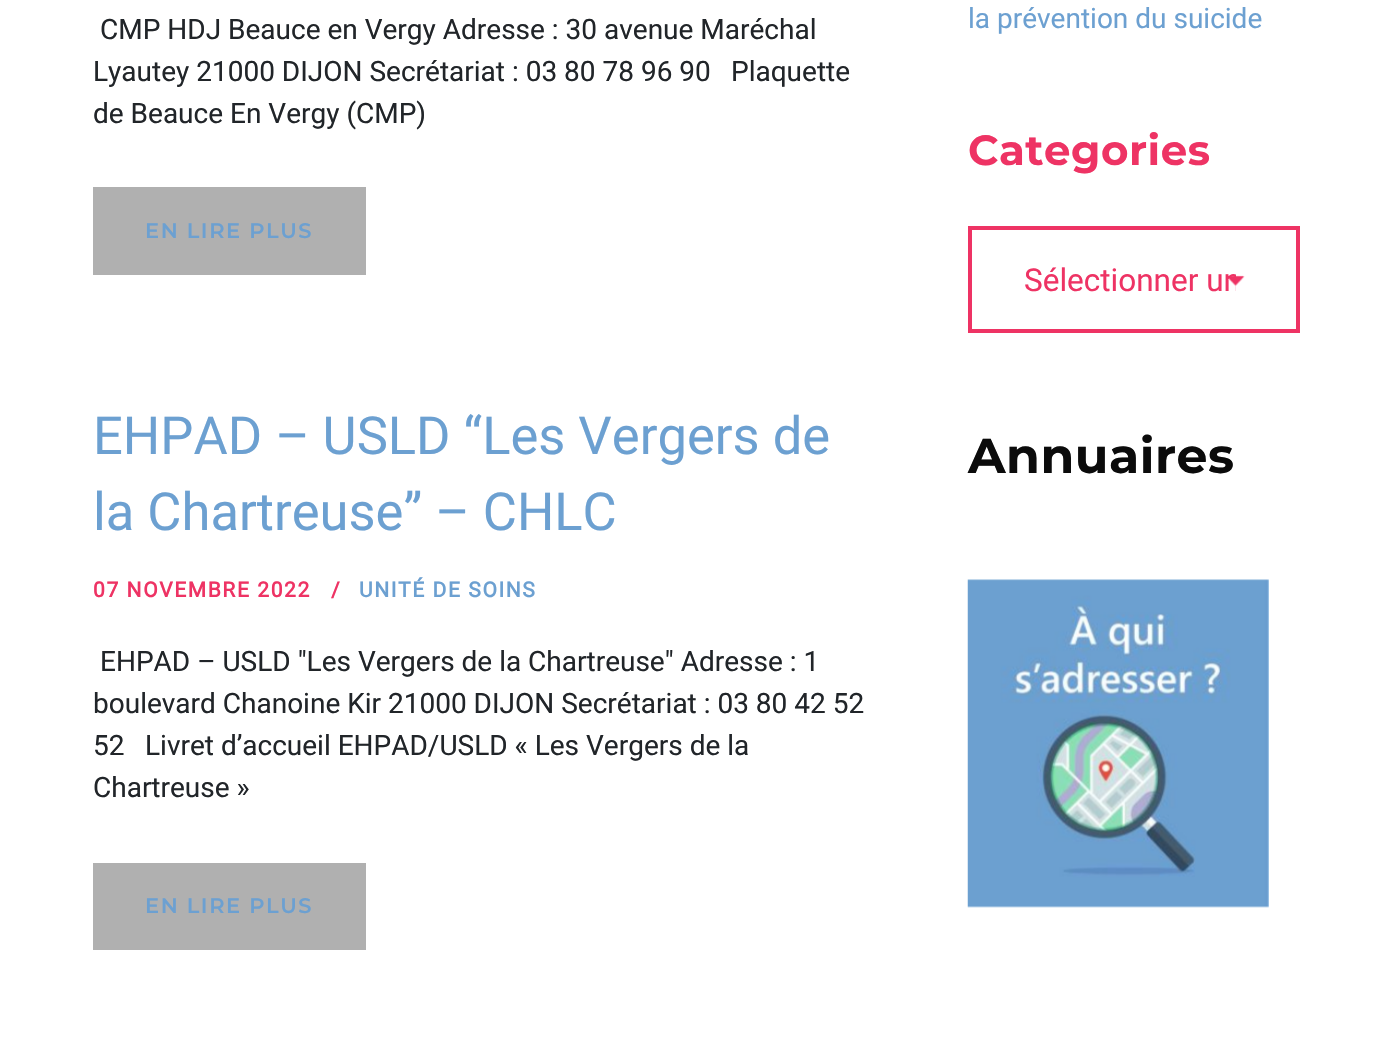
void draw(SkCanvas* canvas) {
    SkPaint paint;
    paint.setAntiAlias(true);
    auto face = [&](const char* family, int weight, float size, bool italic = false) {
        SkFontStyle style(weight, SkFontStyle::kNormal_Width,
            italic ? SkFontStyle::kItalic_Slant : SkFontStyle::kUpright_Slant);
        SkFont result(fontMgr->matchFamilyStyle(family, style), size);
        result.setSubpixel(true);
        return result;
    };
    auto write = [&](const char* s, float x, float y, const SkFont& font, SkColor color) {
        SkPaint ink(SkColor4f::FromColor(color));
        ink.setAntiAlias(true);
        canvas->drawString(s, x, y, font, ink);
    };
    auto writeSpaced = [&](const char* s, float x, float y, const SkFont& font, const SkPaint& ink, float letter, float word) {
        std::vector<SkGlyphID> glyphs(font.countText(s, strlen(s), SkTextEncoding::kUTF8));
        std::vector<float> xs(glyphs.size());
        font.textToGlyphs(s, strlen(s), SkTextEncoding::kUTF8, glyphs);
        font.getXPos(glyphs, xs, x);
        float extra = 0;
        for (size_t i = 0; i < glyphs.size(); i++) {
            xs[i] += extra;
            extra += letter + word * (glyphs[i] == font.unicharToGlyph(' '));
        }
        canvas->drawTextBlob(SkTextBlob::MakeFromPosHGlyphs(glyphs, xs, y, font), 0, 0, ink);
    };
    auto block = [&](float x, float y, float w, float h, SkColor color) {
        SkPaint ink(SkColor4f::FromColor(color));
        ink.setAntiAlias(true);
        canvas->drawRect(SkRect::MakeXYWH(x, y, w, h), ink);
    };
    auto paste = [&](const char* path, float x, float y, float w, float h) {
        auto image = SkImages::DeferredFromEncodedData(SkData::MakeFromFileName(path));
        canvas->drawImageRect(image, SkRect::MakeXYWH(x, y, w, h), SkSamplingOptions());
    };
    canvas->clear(SK_ColorWHITE);
    auto kFont1 = face("Roboto", 400, 28);
    write("CMP HDJ Beauce en Vergy Adresse : 30 avenue Maréchal", 100, 39, kFont1, SkColorSetRGB(33, 37, 41));
    write("Lyautey 21000 DIJON Secrétariat : 03 80 78 96 90", 93, 81, kFont1, SkColorSetRGB(33, 37, 41));
    write("Plaquette", 731, 81, kFont1, SkColorSetRGB(33, 37, 41));
    write("de Beauce En Vergy (CMP)", 93, 123, kFont1, SkColorSetRGB(33, 37, 41));
    block(93, 187, 273, 88, SkColorSetRGB(176, 176, 176));
    auto kFont2 = face("Montserrat", 600, 21);
    paint.setColor(SkColorSetRGB(108, 160, 209));
    writeSpaced("EN LIRE PLUS", 145, 238, kFont2, paint, 1.6f, 0);
    auto kFont3 = face("Roboto", 400, 52.5f);
    write("EHPAD – USLD “Les Vergers de", 93, 454, kFont3, SkColorSetRGB(108, 160, 209));
    write("la Chartreuse” – CHLC", 93, 530, kFont3, SkColorSetRGB(108, 160, 209));
    auto kFont4 = face("Roboto", 700, 21);
    paint.setColor(SkColorSetRGB(238, 51, 100));
    writeSpaced("07 NOVEMBRE 2022", 93, 597, kFont4, paint, 1.6f, 0);
    writeSpaced("/", 331, 597, kFont4, paint, 1.6f, 0);
    paint.setColor(SkColorSetRGB(108, 160, 209));
    writeSpaced("UNITÉ DE SOINS", 359, 597, kFont4, paint, 1.6f, 0);
    write("EHPAD – USLD \"Les Vergers de la Chartreuse\" Adresse : 1", 100, 671, kFont1, SkColorSetRGB(33, 37, 41));
    write("boulevard Chanoine Kir 21000 DIJON Secrétariat : 03 80 42 52", 93, 713, kFont1, SkColorSetRGB(33, 37, 41));
    write("52", 93, 755, kFont1, SkColorSetRGB(33, 37, 41));
    write("Livret d’accueil EHPAD/USLD « Les Vergers de la", 145, 755, kFont1, SkColorSetRGB(33, 37, 41));
    write("Chartreuse »", 93, 797, kFont1, SkColorSetRGB(33, 37, 41));
    block(93, 863, 273, 87, SkColorSetRGB(176, 176, 176));
    writeSpaced("EN LIRE PLUS", 145, 913, kFont2, paint, 1.6f, 0);
    write("la prévention du suicide", 968, 28, kFont1, SkColorSetRGB(108, 160, 209));
    auto kFont5 = face("Montserrat", 700, 42);
    paint.setColor(SkColorSetRGB(238, 51, 100));
    writeSpaced("Categories", 968, 165, kFont5, paint, 0.5f, 0);
    paste("pic1.png", 1226, 275, 19, 11);
    paint.setStyle(SkPaint::kStroke_Style);
    paint.setStrokeWidth(4);
    canvas->drawRect(SkRect::MakeXYWH(970, 228, 328, 103), paint);
    canvas->save();
    canvas->clipRect(SkRect::MakeXYWH(1024, 256, 212, 47));
    auto kFont6 = face("Roboto", 400, 31.5f);
    write("Sélectionner un", 1024, 291, kFont6, SkColorSetRGB(238, 51, 100));
    canvas->restore();
    auto kFont7 = face("Montserrat", 700, 49);
    paint.setStyle(SkPaint::kFill_Style);
    paint.setColor(SkColorSetRGB(11, 11, 11));
    writeSpaced("Annuaires", 968, 473, kFont7, paint, 0.5f, 0);
    paste("pic2.png", 967, 579, 302, 329);
}
